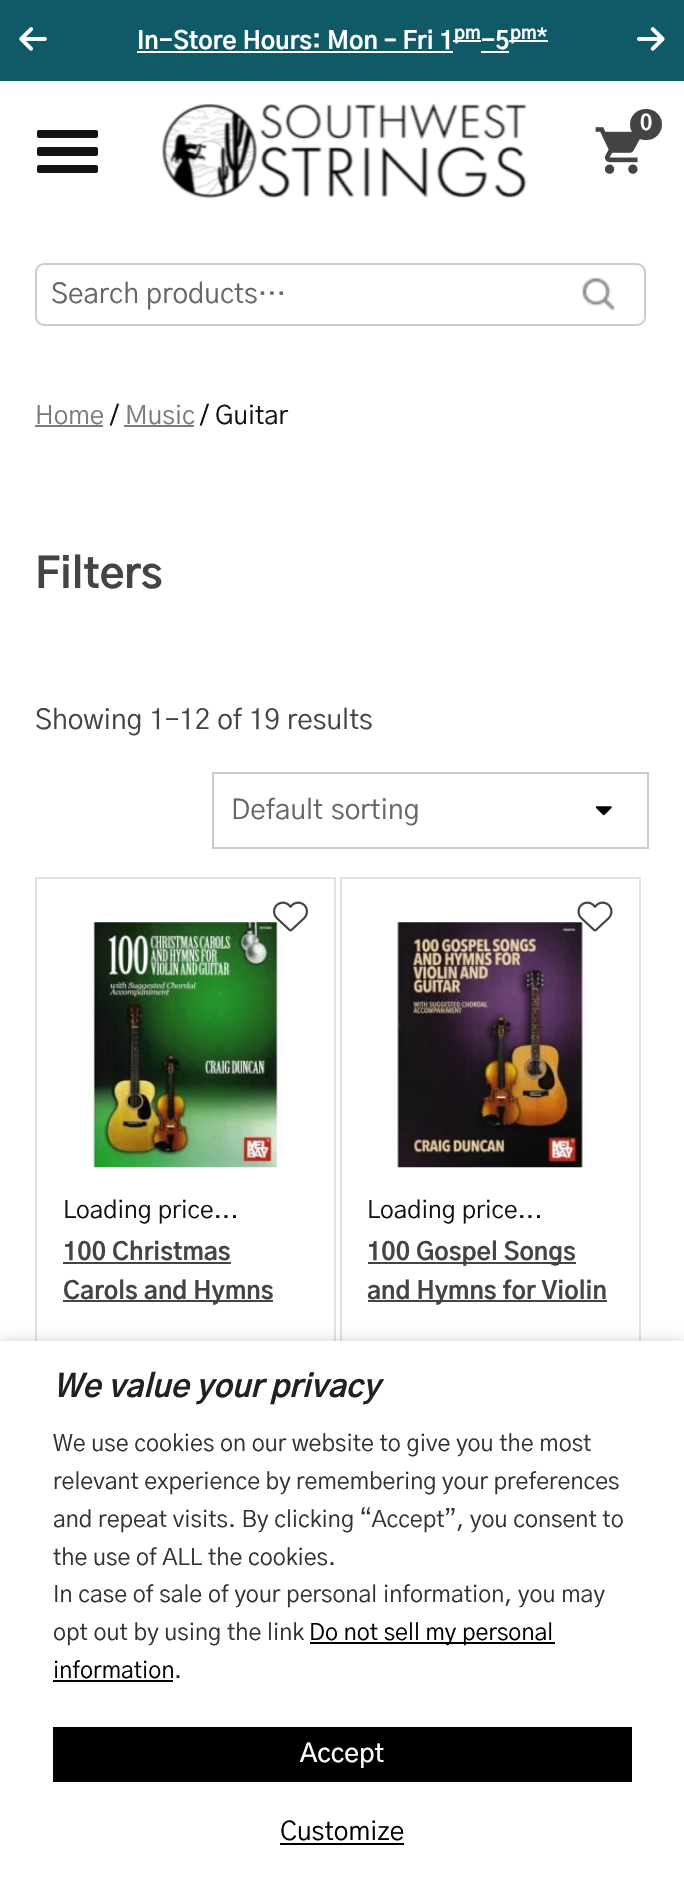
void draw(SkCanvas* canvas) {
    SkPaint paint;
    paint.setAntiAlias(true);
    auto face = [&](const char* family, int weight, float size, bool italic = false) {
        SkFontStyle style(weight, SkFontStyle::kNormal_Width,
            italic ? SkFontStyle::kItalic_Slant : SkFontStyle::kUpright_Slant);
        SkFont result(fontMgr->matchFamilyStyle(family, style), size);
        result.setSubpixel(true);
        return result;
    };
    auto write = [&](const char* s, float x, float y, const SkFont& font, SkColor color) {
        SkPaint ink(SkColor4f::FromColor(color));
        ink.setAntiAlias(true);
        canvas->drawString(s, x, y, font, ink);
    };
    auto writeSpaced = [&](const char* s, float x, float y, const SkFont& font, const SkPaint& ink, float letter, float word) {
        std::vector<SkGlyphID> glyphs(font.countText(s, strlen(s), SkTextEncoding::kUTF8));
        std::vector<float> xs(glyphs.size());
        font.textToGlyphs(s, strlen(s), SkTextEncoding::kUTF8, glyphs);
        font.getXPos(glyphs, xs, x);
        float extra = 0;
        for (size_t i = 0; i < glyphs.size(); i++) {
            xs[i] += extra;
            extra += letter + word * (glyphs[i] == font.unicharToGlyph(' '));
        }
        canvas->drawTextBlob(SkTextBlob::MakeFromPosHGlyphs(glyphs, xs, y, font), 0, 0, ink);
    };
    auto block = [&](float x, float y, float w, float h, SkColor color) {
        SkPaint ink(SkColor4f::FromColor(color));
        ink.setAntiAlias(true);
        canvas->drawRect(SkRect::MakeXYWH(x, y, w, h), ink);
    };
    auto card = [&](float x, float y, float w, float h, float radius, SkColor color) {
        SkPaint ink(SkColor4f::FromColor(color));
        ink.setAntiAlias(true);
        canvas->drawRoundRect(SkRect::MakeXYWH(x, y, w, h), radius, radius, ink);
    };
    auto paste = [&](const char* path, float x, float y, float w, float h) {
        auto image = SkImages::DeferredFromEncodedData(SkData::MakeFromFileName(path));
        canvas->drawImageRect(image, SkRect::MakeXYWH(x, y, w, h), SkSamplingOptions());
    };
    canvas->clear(SK_ColorWHITE);
    block(0, 0, 684, 81, SkColorSetRGB(16, 89, 102));
    paste("pic1.png", 19, 27, 28, 24);
    auto kFont1 = face("Gothic A1", 700, 24.5f);
    write("In-Store Hours: Mon – Fri 1", 137, 49, kFont1, SK_ColorWHITE);
    block(137, 51, 316, 2, SK_ColorWHITE);
    block(453, 40, 28, 2, SK_ColorWHITE);
    auto kFont2 = face("Gothic A1", 700, 18);
    write("pm", 454, 39, kFont2, SK_ColorWHITE);
    write("-5", 481, 49, kFont1, SK_ColorWHITE);
    block(481, 51, 28, 2, SK_ColorWHITE);
    block(509, 40, 39, 2, SK_ColorWHITE);
    write("pm*", 510, 39, kFont2, SK_ColorWHITE);
    paste("pic2.png", 637, 27, 28, 24);
    paste("pic3.png", 161, 103, 366, 96);
    paste("pic4.png", 595, 127, 45, 47);
    card(630, 109, 32, 31, 15.5f, SkColorSetRGB(68, 68, 68));
    auto kFont3 = face("Gothic A1", 700, 21);
    write("0", 640, 130, kFont3, SK_ColorWHITE);
    card(37, 147, 61, 9, 2, SkColorSetRGB(18, 18, 18));
    card(37, 130, 61, 8, 2, SkColorSetRGB(18, 18, 18));
    card(37, 165, 61, 8, 2, SkColorSetRGB(18, 18, 18));
    paint.setStyle(SkPaint::kStroke_Style);
    paint.setStrokeWidth(2);
    paint.setColor(SkColorSetRGB(204, 204, 204));
    canvas->drawRoundRect(SkRect::MakeXYWH(36, 264, 609, 61), 8, 8, paint);
    auto kFont4 = face("Gothic A1", 400, 28);
    write("Search products…", 51, 303, kFont4, SkColorSetRGB(102, 102, 102));
    paste("pic5.png", 582, 277, 33, 34);
    auto kFont5 = face("Gothic A1", 400, 26);
    write("Home", 35, 424, kFont5, SkColorSetRGB(124, 124, 124));
    block(35, 425, 68, 2, SkColorSetRGB(124, 124, 124));
    write("/", 110, 424, kFont5, SkColorSetRGB(18, 18, 18));
    write("Music", 125, 424, kFont5, SkColorSetRGB(124, 124, 124));
    block(124, 425, 70, 2, SkColorSetRGB(124, 124, 124));
    write("/ Guitar", 200, 424, kFont5, SkColorSetRGB(18, 18, 18));
    auto kFont6 = face("Gothic A1", 700, 42);
    write("Filters", 35, 588, kFont6, SkColorSetRGB(68, 68, 68));
    write("Showing 1–12 of 19 results", 35, 729, kFont4, SkColorSetRGB(68, 68, 68));
    paste("pic6.png", 595, 806, 17, 10);
    canvas->drawRect(SkRect::MakeXYWH(213, 773, 435, 75), paint);
    paint.setStyle(SkPaint::kFill_Style);
    paint.setColor(SkColorSetRGB(102, 102, 102));
    writeSpaced("Default sorting", 231, 819, kFont4, paint, 0, 1);
    paint.setStyle(SkPaint::kStroke_Style);
    paint.setColor(SkColorSetRGB(226, 226, 226));
    canvas->drawRect(SkRect::MakeXYWH(36, 878, 299, 616), paint);
    paste("pic8.png", 80, 922, 205, 246);
    paste("pic7.png", 273, 901, 35, 31);
    auto kFont7 = face("Gothic A1", 400, 24.5f);
    write("Loading price...", 63, 1218, kFont7, SkColorSetRGB(18, 18, 18));
    write("100 Christmas", 63, 1260, kFont1, SkColorSetRGB(68, 68, 68));
    block(63, 1262, 168, 2, SkColorSetRGB(68, 68, 68));
    block(63, 1300, 210, 2, SkColorSetRGB(68, 68, 68));
    write("Carols and Hymns", 63, 1299, kFont1, SkColorSetRGB(68, 68, 68));
    canvas->drawRect(SkRect::MakeXYWH(341, 878, 299, 616), paint);
    paste("pic10.png", 397, 922, 192, 246);
    paste("pic9.png", 577, 901, 36, 31);
    write("Loading price...", 367, 1218, kFont7, SkColorSetRGB(18, 18, 18));
    block(368, 1262, 208, 2, SkColorSetRGB(68, 68, 68));
    write("100 Gospel Songs", 367, 1260, kFont1, SkColorSetRGB(68, 68, 68));
    block(368, 1300, 239, 2, SkColorSetRGB(68, 68, 68));
    write("and Hymns for Violin", 367, 1299, kFont1, SkColorSetRGB(68, 68, 68));
    paint.setStyle(SkPaint::kFill_Style);
    paint.setColor(SkColorSetARGB(128, 0, 0, 0));
    paint.setMaskFilter(SkMaskFilter::MakeBlur(kNormal_SkBlurStyle, 9));
    canvas->drawRect(SkRect::MakeXYWH(0, 1349, 684, 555), paint);
    paint.setMaskFilter(nullptr);
    block(0, 1341, 684, 554, SK_ColorWHITE);
    auto kFont8 = face("Gothic A1", 700, 31.5f, true);
    paint.setColor(SkColorSetRGB(33, 33, 33));
    writeSpaced("We value your privacy", 53, 1397, kFont8, paint, 0, -0.5f);
    auto kFont9 = face("Gothic A1", 400, 23.3f);
    write("We use cookies on our website to give you the most", 53, 1451, kFont9, SkColorSetRGB(51, 51, 51));
    paint.setColor(SkColorSetRGB(51, 51, 51));
    writeSpaced("relevant experience by remembering your preferences", 53, 1489, kFont9, paint, 0, -0.25f);
    write("and repeat visits. By clicking “Accept”, you consent to", 53, 1527, kFont9, SkColorSetRGB(51, 51, 51));
    write("the use of ALL the cookies.", 53, 1565, kFont9, SkColorSetRGB(51, 51, 51));
    write("In case of sale of your personal information, you may", 53, 1602, kFont9, SkColorSetRGB(51, 51, 51));
    write("opt out by using the link", 53, 1640, kFont9, SkColorSetRGB(51, 51, 51));
    block(310, 1642, 245, 2, SK_ColorBLACK);
    write("Do not sell my personal", 309, 1640, kFont9, SK_ColorBLACK);
    write("information", 53, 1678, kFont9, SK_ColorBLACK);
    block(53, 1680, 120, 2, SK_ColorBLACK);
    write(".", 174, 1678, kFont9, SkColorSetRGB(51, 51, 51));
    block(53, 1727, 579, 55, SK_ColorBLACK);
    auto kFont10 = face("Gothic A1", 500, 26.25f);
    write("Accept", 300, 1762, kFont10, SK_ColorWHITE);
    auto kFont11 = face("Gothic A1", 400, 26.25f);
    write("Customize", 280, 1840, kFont11, SK_ColorBLACK);
    block(280, 1843, 124, 2, SK_ColorBLACK);
}
